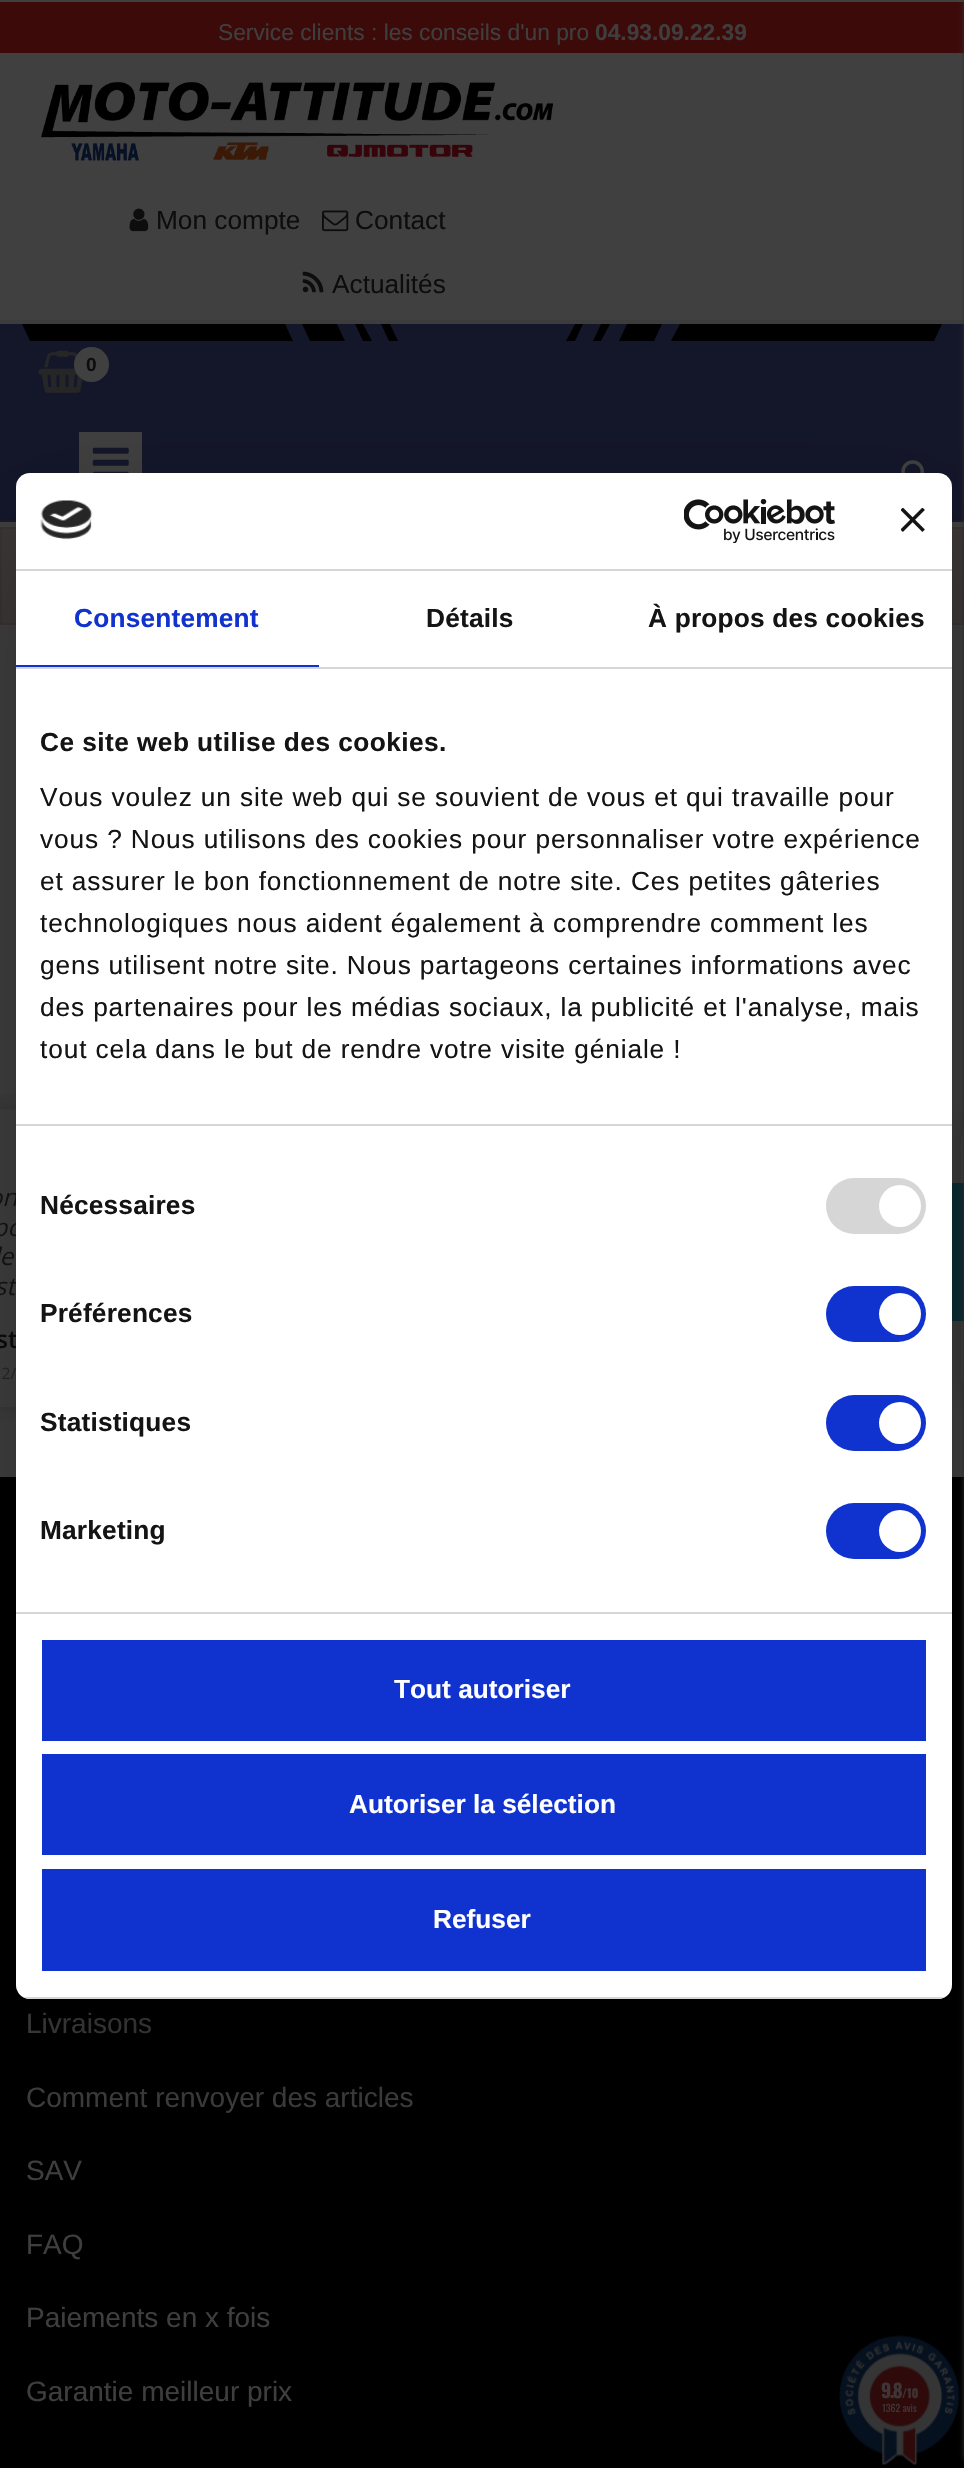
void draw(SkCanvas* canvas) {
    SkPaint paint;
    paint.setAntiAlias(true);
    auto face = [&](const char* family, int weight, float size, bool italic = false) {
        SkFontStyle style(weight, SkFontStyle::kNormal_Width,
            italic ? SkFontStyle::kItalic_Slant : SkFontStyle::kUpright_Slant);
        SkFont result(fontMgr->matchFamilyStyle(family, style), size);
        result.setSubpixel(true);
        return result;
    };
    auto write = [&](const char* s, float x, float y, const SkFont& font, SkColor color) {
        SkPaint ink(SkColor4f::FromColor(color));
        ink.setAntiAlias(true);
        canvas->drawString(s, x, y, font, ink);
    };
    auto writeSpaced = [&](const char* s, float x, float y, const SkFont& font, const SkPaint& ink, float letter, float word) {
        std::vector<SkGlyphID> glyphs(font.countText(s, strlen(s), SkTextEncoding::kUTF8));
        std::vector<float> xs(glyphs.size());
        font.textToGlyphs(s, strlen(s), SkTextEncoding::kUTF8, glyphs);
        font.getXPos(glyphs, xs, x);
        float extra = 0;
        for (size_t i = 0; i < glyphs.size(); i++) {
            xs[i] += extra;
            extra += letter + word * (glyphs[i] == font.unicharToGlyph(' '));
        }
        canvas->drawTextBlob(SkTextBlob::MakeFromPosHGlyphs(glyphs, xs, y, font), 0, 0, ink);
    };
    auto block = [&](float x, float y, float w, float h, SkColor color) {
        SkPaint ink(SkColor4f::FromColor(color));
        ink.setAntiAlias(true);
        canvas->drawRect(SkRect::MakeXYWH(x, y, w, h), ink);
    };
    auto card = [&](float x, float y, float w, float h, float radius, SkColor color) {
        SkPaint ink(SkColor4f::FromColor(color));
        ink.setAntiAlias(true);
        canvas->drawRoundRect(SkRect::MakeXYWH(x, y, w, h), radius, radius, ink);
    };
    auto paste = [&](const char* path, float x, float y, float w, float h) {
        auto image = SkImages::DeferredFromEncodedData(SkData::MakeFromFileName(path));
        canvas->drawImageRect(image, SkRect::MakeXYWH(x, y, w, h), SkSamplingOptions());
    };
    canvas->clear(SkColorSetRGB(64, 64, 64));
    block(0, 2, 964, 51, SkColorSetRGB(61, 10, 10));
    auto kFont1 = face("Liberation Sans", 400, 22.75f);
    write("Service clients : les conseils d'un pro", 218, 40, kFont1, SkColorSetRGB(63, 62, 62));
    auto kFont2 = face("Liberation Sans", 700, 22.75f);
    write("04.93.09.22.39", 595, 40, kFont2, SkColorSetRGB(63, 62, 62));
    paste("pic1.png", 41, 82, 513, 79);
    paste("pic2.png", 129, 208, 20, 24);
    auto kFont3 = face("Liberation Sans", 400, 26.25f);
    write("Mon compte", 156, 229, kFont3, SkColorSetRGB(13, 13, 13));
    paste("pic3.png", 322, 210, 27, 22);
    write("Contact", 355, 229, kFont3, SkColorSetRGB(13, 13, 13));
    paste("pic4.png", 302, 271, 22, 22);
    write("Actualités", 332, 293, kFont3, SkColorSetRGB(13, 13, 13));
    block(0, 320, 964, 4, SkColorSetRGB(60, 60, 60));
    block(0, 520, 964, 2, SkColorSetRGB(24, 27, 44));
    block(0, 324, 964, 196, SkColorSetRGB(20, 22, 42));
    paint.setColor(SK_ColorBLACK);
    canvas->drawPath(SkPathBuilder().moveTo(293, 341).lineTo(398, 341).lineTo(390, 324).lineTo(285, 324).close().detach(), paint);
    paint.setColor(SkColorSetRGB(20, 22, 42));
    canvas->drawPath(SkPathBuilder().moveTo(293, 341).lineTo(389, 341).lineTo(381, 324).lineTo(285, 324).close().detach(), paint);
    paint.setColor(SK_ColorBLACK);
    canvas->drawPath(SkPathBuilder().moveTo(293, 341).lineTo(372, 341).lineTo(363, 324).lineTo(285, 324).close().detach(), paint);
    paint.setColor(SkColorSetRGB(20, 22, 42));
    canvas->drawPath(SkPathBuilder().moveTo(293, 341).lineTo(363, 341).lineTo(355, 324).lineTo(285, 324).close().detach(), paint);
    paint.setColor(SK_ColorBLACK);
    canvas->drawPath(SkPathBuilder().moveTo(293, 341).lineTo(345, 341).lineTo(337, 324).lineTo(285, 324).close().detach(), paint);
    paint.setColor(SkColorSetRGB(20, 22, 42));
    canvas->drawPath(SkPathBuilder().moveTo(292.5f, 341).lineTo(310, 341).lineTo(302, 324).lineTo(285, 324).close().detach(), paint);
    paint.setColor(SK_ColorBLACK);
    canvas->drawPath(SkPathBuilder().moveTo(22, 324).lineTo(285, 324).lineTo(293, 341).lineTo(30, 341).close().detach(), paint);
    canvas->drawPath(SkPathBuilder().moveTo(575, 324).lineTo(566, 341).lineTo(672, 341).lineTo(679, 324).close().detach(), paint);
    paint.setColor(SkColorSetRGB(20, 22, 42));
    canvas->drawPath(SkPathBuilder().moveTo(583, 324).lineTo(575, 341).lineTo(672, 341).lineTo(679, 324).close().detach(), paint);
    paint.setColor(SK_ColorBLACK);
    canvas->drawPath(SkPathBuilder().moveTo(601, 324).lineTo(593, 341).lineTo(672, 341).lineTo(679, 324).close().detach(), paint);
    paint.setColor(SkColorSetRGB(20, 22, 42));
    canvas->drawPath(SkPathBuilder().moveTo(610, 324).lineTo(601, 341).lineTo(672, 341).lineTo(679, 324).close().detach(), paint);
    paint.setColor(SK_ColorBLACK);
    canvas->drawPath(SkPathBuilder().moveTo(627, 324).lineTo(619, 341).lineTo(672, 341).lineTo(679, 324).close().detach(), paint);
    paint.setColor(SkColorSetRGB(20, 22, 42));
    canvas->drawPath(SkPathBuilder().moveTo(662, 324).lineTo(654, 341).lineTo(671.5f, 341).lineTo(679.5f, 324).close().detach(), paint);
    paint.setColor(SK_ColorBLACK);
    canvas->drawPath(SkPathBuilder().moveTo(680, 324).lineTo(942, 324).lineTo(934, 341).lineTo(671, 341).close().detach(), paint);
    paste("pic5.png", 38, 350, 45, 43);
    paint.setColor(SkColorSetRGB(64, 64, 64));
    canvas->drawCircle(91.5f, 364.5f, 17.5f, paint);
    auto kFont4 = face("Liberation Sans", 700, 19);
    write("0", 86, 371, kFont4, SkColorSetRGB(13, 13, 13));
    block(79, 432, 63, 41, SkColorSetRGB(64, 64, 64));
    paste("pic6.png", 92, 447, 37, 26);
    paste("pic7.png", 901, 460, 23, 13);
    paste("pic8.png", 0, 1094, 964, 328);
    block(952, 1183, 12, 138, SkColorSetRGB(12, 45, 53));
    paint.setColor(SkColorSetRGB(61, 56, 56));
    canvas->drawRect(SkRect::MakeXYWH(1, 528, 962, 96), paint);
    paint.setStyle(SkPaint::kStroke_Style);
    paint.setStrokeWidth(2);
    paint.setColor(SkColorSetRGB(59, 51, 51));
    canvas->drawRect(SkRect::MakeXYWH(1, 528, 962, 96), paint);
    block(0, 1477, 964, 991, SK_ColorBLACK);
    paint.setStyle(SkPaint::kFill_Style);
    paint.setColor(SkColorSetRGB(47, 47, 47));
    paint.setMaskFilter(SkMaskFilter::MakeBlur(kNormal_SkBlurStyle, 2.5f));
    canvas->drawRoundRect(SkRect::MakeXYWH(964, -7, 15, 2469), 7, 7, paint);
    paint.setMaskFilter(nullptr);
    auto kFont5 = face("Liberation Sans", 400, 28);
    write("Livraisons", 26, 2033, kFont5, SkColorSetRGB(63, 62, 62));
    write("Comment renvoyer des articles", 26, 2107, kFont5, SkColorSetRGB(63, 62, 62));
    write("SAV", 26, 2180, kFont5, SkColorSetRGB(63, 62, 62));
    write("FAQ", 26, 2254, kFont5, SkColorSetRGB(63, 62, 62));
    write("Paiements en x fois", 26, 2327, kFont5, SkColorSetRGB(63, 62, 62));
    write("Garantie meilleur prix", 26, 2401, kFont5, SkColorSetRGB(63, 62, 62));
    paint.setColor(SkColorSetARGB(77, 0, 0, 0));
    paint.setMaskFilter(SkMaskFilter::MakeBlur(kNormal_SkBlurStyle, 59.5f));
    canvas->drawRoundRect(SkRect::MakeXYWH(16, 529, 936, 1526), 14, 14, paint);
    paint.setMaskFilter(nullptr);
    card(16, 473, 936, 1526, 14, SK_ColorWHITE);
    block(16, 569, 936, 2, SkColorSetRGB(214, 214, 214));
    paste("pic9.png", 40, 500, 53, 40);
    paste("pic10.png", 684, 499, 151, 44);
    paste("pic11.png", 901, 508, 24, 24);
    block(16, 667, 936, 2, SkColorSetRGB(214, 214, 214));
    block(16, 665, 303, 2, SkColorSetRGB(16, 50, 207));
    auto kFont6 = face("Liberation Sans", 700, 26.25f);
    paint.setColor(SkColorSetRGB(16, 50, 207));
    writeSpaced("Consentement", 74, 627, kFont6, paint, 0.2f, 0);
    paint.setColor(SkColorSetRGB(20, 20, 20));
    writeSpaced("Détails", 426, 627, kFont6, paint, 0.2f, 0);
    writeSpaced("À propos des cookies", 648, 627, kFont6, paint, 0.2f, 0);
    block(16, 1124, 936, 2, SkColorSetRGB(214, 214, 214));
    writeSpaced("Ce site web utilise des cookies.", 40, 751, kFont6, paint, 0.45f, 0);
    writeSpaced("Vous voulez un site web qui se souvient de vous et qui travaille pour", 40, 806, kFont3, paint, 0.88f, 0);
    writeSpaced("vous ? Nous utilisons des cookies pour personnaliser votre expérience", 40, 848, kFont3, paint, 0.88f, 0);
    writeSpaced("et assurer le bon fonctionnement de notre site. Ces petites gâteries", 40, 890, kFont3, paint, 0.88f, 0);
    writeSpaced("technologiques nous aident également à comprendre comment les", 40, 932, kFont3, paint, 0.88f, 0);
    writeSpaced("gens utilisent notre site. Nous partageons certaines informations avec", 40, 974, kFont3, paint, 0.88f, 0);
    writeSpaced("des partenaires pour les médias sociaux, la publicité et l'analyse, mais", 40, 1016, kFont3, paint, 0.88f, 0);
    writeSpaced("tout cela dans le but de rendre votre visite géniale !", 40, 1058, kFont3, paint, 0.88f, 0);
    block(16, 1612, 936, 2, SkColorSetRGB(214, 214, 214));
    writeSpaced("Nécessaires", 40, 1214, kFont6, paint, 0.2f, 0);
    card(826, 1178, 100, 56, 28, SkColorSetRGB(214, 214, 214));
    paint.setColor(SK_ColorWHITE);
    canvas->drawCircle(900, 1206, 21, paint);
    paint.setColor(SkColorSetRGB(20, 20, 20));
    writeSpaced("Préférences", 40, 1322, kFont6, paint, 0.2f, 0);
    card(826, 1286, 100, 56, 28, SkColorSetRGB(16, 50, 207));
    paint.setColor(SK_ColorWHITE);
    canvas->drawCircle(900, 1314, 21, paint);
    paint.setColor(SkColorSetRGB(20, 20, 20));
    writeSpaced("Statistiques", 40, 1431, kFont6, paint, 0.2f, 0);
    card(826, 1395, 100, 56, 28, SkColorSetRGB(16, 50, 207));
    paint.setColor(SK_ColorWHITE);
    canvas->drawCircle(900, 1423, 21, paint);
    paint.setColor(SkColorSetRGB(20, 20, 20));
    writeSpaced("Marketing", 40, 1539, kFont6, paint, 0.2f, 0);
    card(826, 1503, 100, 56, 28, SkColorSetRGB(16, 50, 207));
    paint.setColor(SK_ColorWHITE);
    canvas->drawCircle(900, 1531, 21, paint);
    canvas->save();
    canvas->clipPath(SkPathBuilder().moveTo(30, 473).lineTo(938, 473).cubicTo(945.5f, 473, 952, 479.5f, 952, 487).lineTo(952, 1985).cubicTo(952, 1992.5f, 945.5f, 1999, 938, 1999).lineTo(30, 1999).cubicTo(22.5f, 1999, 16, 1992.5f, 16, 1985).lineTo(16, 487).cubicTo(16, 479.5f, 22.5f, 473, 30, 473).close().detach(), true);
    block(16, 1997, 936, 2, SkColorSetRGB(214, 214, 214));
    canvas->restore();
    block(42, 1640, 884, 101, SkColorSetRGB(16, 50, 207));
    write("Tout autoriser", 394, 1698, kFont6, SK_ColorWHITE);
    block(42, 1754, 884, 101, SkColorSetRGB(16, 50, 207));
    write("Autoriser la sélection", 349, 1813, kFont6, SK_ColorWHITE);
    block(42, 1869, 884, 102, SkColorSetRGB(16, 50, 207));
    write("Refuser", 433, 1928, kFont6, SK_ColorWHITE);
    paste("pic12.png", 839, 2335, 121, 130);
    auto kFont7 = face("Oswald", 700, 19);
    paint.setColor(SkColorSetRGB(61, 54, 54));
    writeSpaced("9.8", 881, 2398, kFont7, paint, -1.5f, 0);
    auto kFont8 = face("Oswald", 700, 12);
    write("/10", 902, 2398, kFont8, SkColorSetRGB(61, 54, 54));
    auto kFont9 = face("Oswald", 400, 10);
    write("1362 avis", 882, 2412, kFont9, SkColorSetRGB(61, 54, 54));
}
